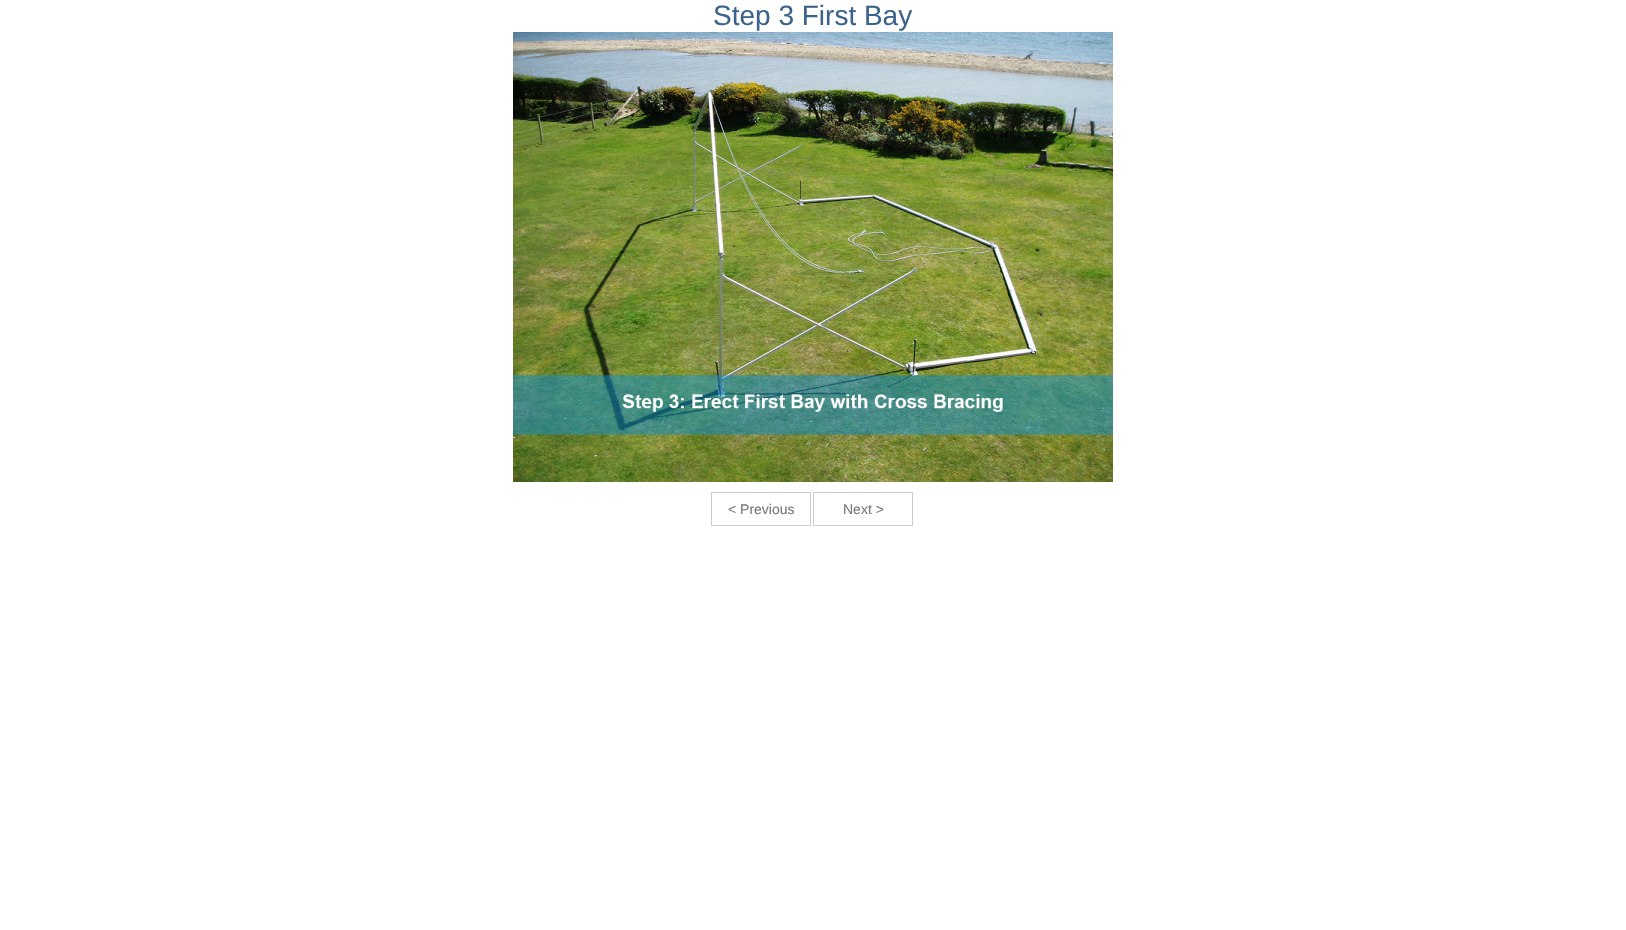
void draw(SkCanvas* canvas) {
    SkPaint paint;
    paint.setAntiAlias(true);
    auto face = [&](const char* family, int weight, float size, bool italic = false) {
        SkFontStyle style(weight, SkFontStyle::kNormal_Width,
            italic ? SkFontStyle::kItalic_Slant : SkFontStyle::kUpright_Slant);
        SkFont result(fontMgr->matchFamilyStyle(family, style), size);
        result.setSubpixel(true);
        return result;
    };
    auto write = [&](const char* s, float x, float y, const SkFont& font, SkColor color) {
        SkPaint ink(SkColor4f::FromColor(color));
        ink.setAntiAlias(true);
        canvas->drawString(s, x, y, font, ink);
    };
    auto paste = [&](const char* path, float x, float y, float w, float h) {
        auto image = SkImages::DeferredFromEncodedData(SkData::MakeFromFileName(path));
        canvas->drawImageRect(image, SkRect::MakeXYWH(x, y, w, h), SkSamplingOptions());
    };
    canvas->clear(SK_ColorWHITE);
    auto kFont1 = face("Liberation Sans", 400, 28);
    write("Step 3 First Bay", 713, 25, kFont1, SkColorSetRGB(60, 99, 138));
    paste("pic1.png", 513, 32, 600, 450);
    paint.setStyle(SkPaint::kStroke_Style);
    paint.setStrokeWidth(1);
    paint.setColor(SkColorSetRGB(204, 204, 204));
    canvas->drawRect(SkRect::MakeXYWH(711.5f, 492.5f, 99, 33), paint);
    auto kFont2 = face("Liberation Sans", 400, 14);
    write("< Previous", 728, 514, kFont2, SkColorSetRGB(119, 119, 119));
    canvas->drawRect(SkRect::MakeXYWH(813.5f, 492.5f, 99, 33), paint);
    write("Next >", 843, 514, kFont2, SkColorSetRGB(119, 119, 119));
}
